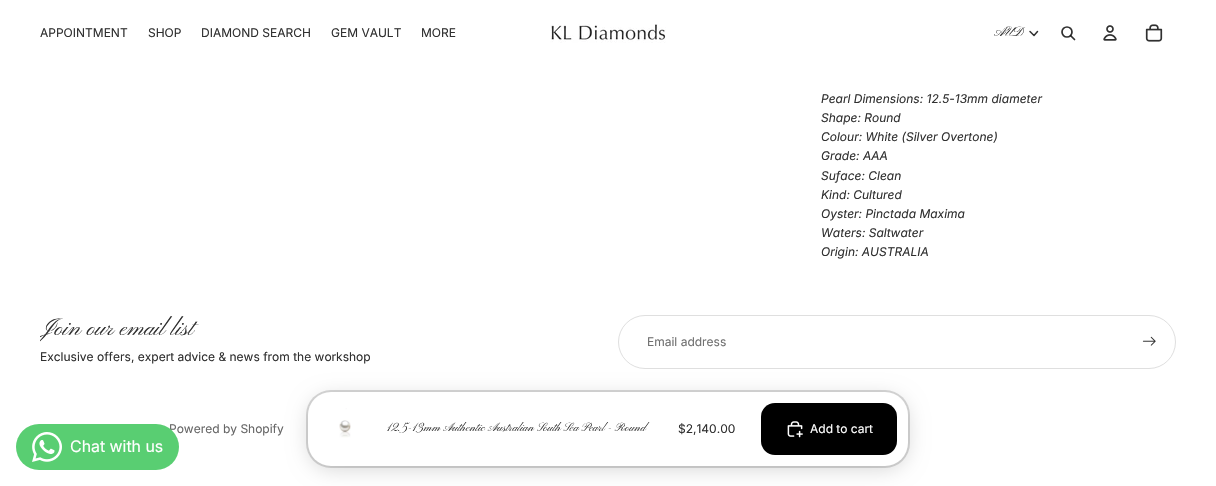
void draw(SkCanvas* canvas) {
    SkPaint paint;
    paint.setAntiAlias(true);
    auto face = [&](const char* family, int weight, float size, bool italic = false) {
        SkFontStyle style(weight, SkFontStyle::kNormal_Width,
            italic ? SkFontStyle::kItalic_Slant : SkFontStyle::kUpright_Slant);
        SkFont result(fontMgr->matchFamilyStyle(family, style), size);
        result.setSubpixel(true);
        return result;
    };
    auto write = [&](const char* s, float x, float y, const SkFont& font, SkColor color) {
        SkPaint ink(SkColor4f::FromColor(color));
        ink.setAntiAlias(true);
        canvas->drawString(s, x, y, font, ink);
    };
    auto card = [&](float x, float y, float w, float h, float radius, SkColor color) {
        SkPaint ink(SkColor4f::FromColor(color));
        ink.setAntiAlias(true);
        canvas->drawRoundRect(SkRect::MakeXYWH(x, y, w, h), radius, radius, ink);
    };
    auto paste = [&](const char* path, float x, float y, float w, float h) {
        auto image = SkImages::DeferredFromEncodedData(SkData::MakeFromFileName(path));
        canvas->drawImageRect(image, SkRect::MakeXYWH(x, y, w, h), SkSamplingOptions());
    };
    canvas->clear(SK_ColorWHITE);
    auto kFont1 = face("Inter", 400, 12);
    write("APPOINTMENT", 40, 37, kFont1, SkColorSetRGB(48, 48, 48));
    write("SHOP", 148, 37, kFont1, SkColorSetRGB(48, 48, 48));
    write("DIAMOND SEARCH", 201, 37, kFont1, SkColorSetRGB(48, 48, 48));
    write("GEM VAULT", 331, 37, kFont1, SkColorSetRGB(48, 48, 48));
    write("MORE", 421, 37, kFont1, SkColorSetRGB(48, 48, 48));
    paste("pic1.png", 550, 24, 116, 19);
    auto kFont2 = face("Pinyon Script", 400, 14);
    write("AUD", 994, 36, kFont2, SkColorSetRGB(48, 48, 48));
    paint.setStyle(SkPaint::kStroke_Style);
    paint.setStrokeWidth(1.5f);
    paint.setStrokeCap(SkPaint::kRound_Cap);
    paint.setStrokeJoin(SkPaint::kRound_Join);
    paint.setColor(SkColorSetRGB(48, 48, 48));
    canvas->drawPath(SkPathBuilder().moveTo(1037.5f, 31.5f).lineTo(1034, 35.5f).lineTo(1030, 31.5f).detach(), paint);
    paint.setStrokeWidth(1.7f);
    paint.setStrokeCap(SkPaint::kButt_Cap);
    paint.setStrokeJoin(SkPaint::kMiter_Join);
    canvas->drawCircle(1067, 32, 5, paint);
    paint.setStrokeCap(SkPaint::kRound_Cap);
    paint.setStrokeJoin(SkPaint::kRound_Join);
    paint.setColor(SkColorSetARGB(207, 0, 0, 0));
    canvas->drawPath(SkPathBuilder().moveTo(1071, 36).lineTo(1074.5f, 39.5f).detach(), paint);
    paste("pic2.png", 1103, 25, 14, 16);
    paste("pic3.png", 1145, 24, 18, 18);
    auto kFont3 = face("Inter", 400, 12, true);
    write("Pearl Dimensions: 12.5-13mm diameter", 821, 103, kFont3, SkColorSetRGB(48, 48, 48));
    write("Shape: Round", 821, 122, kFont3, SkColorSetRGB(48, 48, 48));
    write("Colour: White (Silver Overtone)", 821, 141, kFont3, SkColorSetRGB(48, 48, 48));
    write("Grade: AAA", 821, 160, kFont3, SkColorSetRGB(48, 48, 48));
    write("Suface: Clean", 821, 180, kFont3, SkColorSetRGB(48, 48, 48));
    write("Kind: Cultured", 821, 199, kFont3, SkColorSetRGB(48, 48, 48));
    write("Oyster: Pinctada Maxima", 821, 218, kFont3, SkColorSetRGB(48, 48, 48));
    write("Waters: Saltwater", 821, 237, kFont3, SkColorSetRGB(48, 48, 48));
    write("Origin: AUSTRALIA", 821, 256, kFont3, SkColorSetRGB(48, 48, 48));
    paint.setStrokeWidth(1);
    paint.setStrokeCap(SkPaint::kButt_Cap);
    paint.setStrokeJoin(SkPaint::kMiter_Join);
    paint.setColor(SkColorSetRGB(223, 223, 223));
    canvas->drawRoundRect(SkRect::MakeXYWH(618.5f, 315.5f, 557, 53), 26.5f, 26.5f, paint);
    paint.setStyle(SkPaint::kFill_Style);
    paint.setColor(SkColorSetARGB(38, 0, 0, 0));
    paint.setMaskFilter(SkMaskFilter::MakeBlur(kNormal_SkBlurStyle, 10));
    canvas->drawRoundRect(SkRect::MakeXYWH(308, 396, 600, 74), 25, 25, paint);
    paint.setMaskFilter(nullptr);
    card(306, 390, 604, 78, 25, SkColorSetARGB(38, 0, 0, 0));
    card(308, 392, 600, 74, 23, SK_ColorWHITE);
    paste("pic4.png", 339, 408, 12, 30);
    canvas->save();
    canvas->clipRect(SkRect::MakeXYWH(386, 422, 278, 13));
    auto kFont4 = face("Pinyon Script", 400, 12);
    write("12.5-13mm Authentic Australian South Sea Pearl - Round", 386, 431, kFont4, SkColorSetRGB(48, 48, 48));
    canvas->restore();
    write("$2,140.00", 678, 433, kFont1, SkColorSetRGB(48, 48, 48));
    card(761, 403, 136, 52, 14, SK_ColorBLACK);
    paste("pic5.png", 787, 421, 16, 17);
    write("Add to cart", 810, 433, kFont1, SK_ColorWHITE);
    canvas->save();
    canvas->clipRect(SkRect::MakeXYWH(40, 285, 1136, 114));
    auto kFont5 = face("Pinyon Script", 400, 24);
    write("Join our email list", 40, 335, kFont5, SkColorSetRGB(48, 48, 48));
    canvas->restore();
    write("Exclusive offers, expert advice & news from the workshop", 40, 361, kFont1, SkColorSetRGB(48, 48, 48));
    write("Email address", 647, 346, kFont1, SkColorSetRGB(112, 112, 112));
    paste("pic6.png", 1142, 336, 14, 10);
    write("Powered by Shopify", 169, 433, kFont1, SkColorSetRGB(102, 102, 102));
    card(16, 424, 163, 46, 23, SkColorSetRGB(89, 206, 114));
    paste("pic7.png", 32, 432, 30, 30);
    auto kFont6 = face("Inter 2", 400, 16);
    write("Chat with us", 70, 452, kFont6, SK_ColorWHITE);
}
